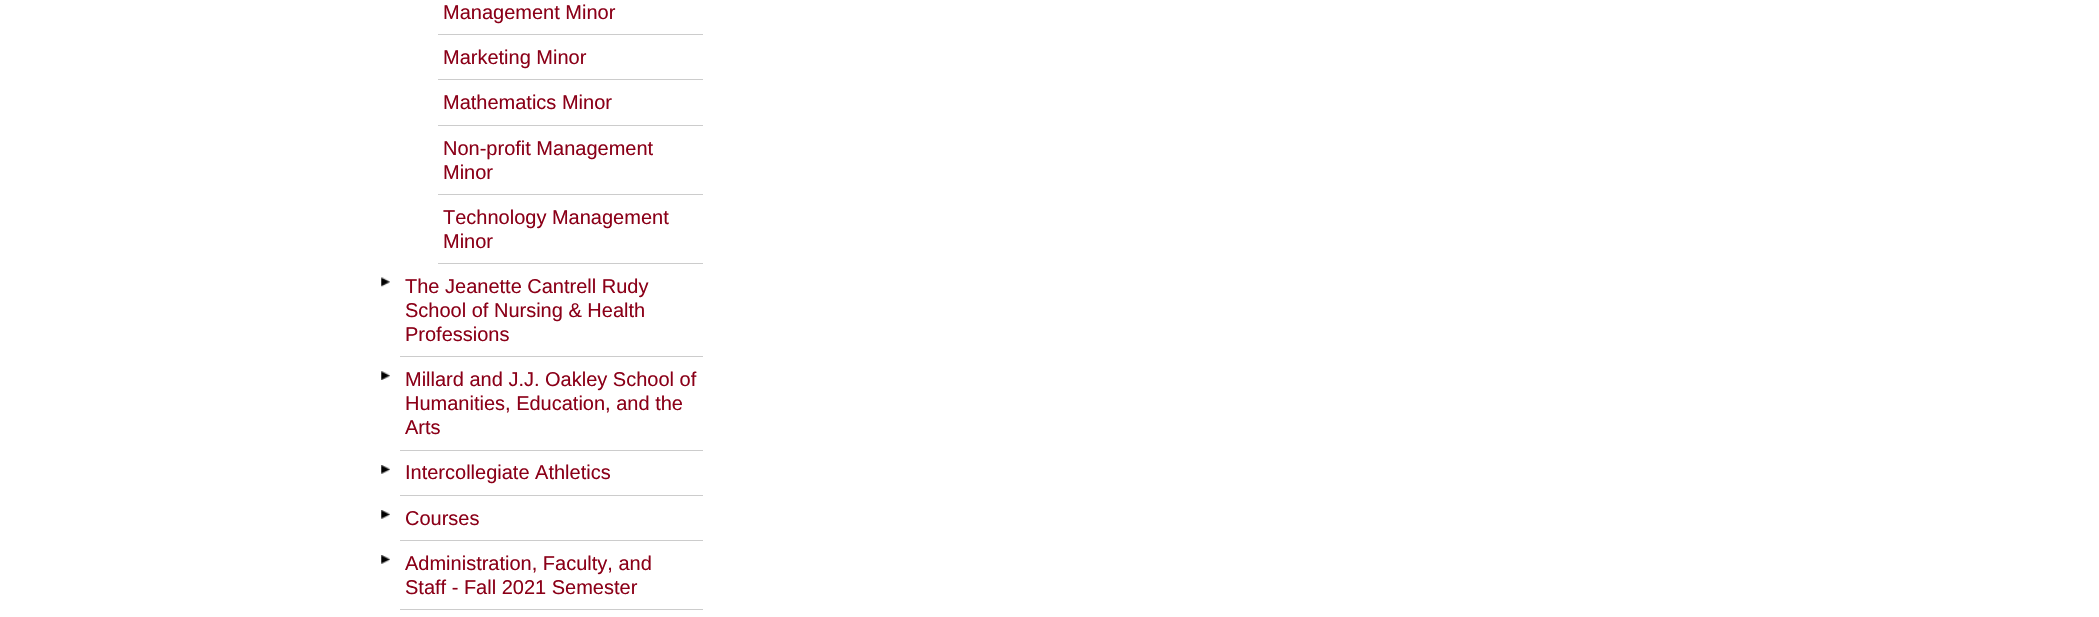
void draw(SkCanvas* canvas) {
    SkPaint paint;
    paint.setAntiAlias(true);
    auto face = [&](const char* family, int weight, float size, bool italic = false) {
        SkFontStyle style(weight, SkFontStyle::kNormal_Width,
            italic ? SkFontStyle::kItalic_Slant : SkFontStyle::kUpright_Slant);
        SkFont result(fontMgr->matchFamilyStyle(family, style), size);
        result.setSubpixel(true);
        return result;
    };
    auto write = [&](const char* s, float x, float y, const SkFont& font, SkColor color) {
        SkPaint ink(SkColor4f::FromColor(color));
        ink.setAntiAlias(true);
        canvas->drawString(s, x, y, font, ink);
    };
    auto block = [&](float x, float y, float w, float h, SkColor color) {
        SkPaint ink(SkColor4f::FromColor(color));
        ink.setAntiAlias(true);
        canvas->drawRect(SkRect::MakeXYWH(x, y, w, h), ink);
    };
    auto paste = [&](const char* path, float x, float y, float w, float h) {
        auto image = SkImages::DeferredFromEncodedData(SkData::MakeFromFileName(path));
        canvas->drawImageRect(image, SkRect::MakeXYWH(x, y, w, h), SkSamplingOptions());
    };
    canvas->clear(SK_ColorWHITE);
    block(438, 34, 265, 1, SkColorSetRGB(204, 204, 204));
    auto kFont1 = face("Liberation Sans", 400, 20);
    write("Management Minor", 443, 19, kFont1, SkColorSetRGB(139, 0, 24));
    block(438, 79, 265, 1, SkColorSetRGB(204, 204, 204));
    write("Marketing Minor", 443, 64, kFont1, SkColorSetRGB(139, 0, 24));
    block(438, 125, 265, 1, SkColorSetRGB(204, 204, 204));
    write("Mathematics Minor", 443, 109, kFont1, SkColorSetRGB(139, 0, 24));
    block(438, 194, 265, 1, SkColorSetRGB(204, 204, 204));
    write("Non-profit Management", 443, 155, kFont1, SkColorSetRGB(139, 0, 24));
    write("Minor", 443, 179, kFont1, SkColorSetRGB(139, 0, 24));
    block(438, 263, 265, 1, SkColorSetRGB(204, 204, 204));
    write("Technology Management", 443, 224, kFont1, SkColorSetRGB(139, 0, 24));
    write("Minor", 443, 248, kFont1, SkColorSetRGB(139, 0, 24));
    paste("pic1.png", 381, 277, 9, 10);
    block(400, 356, 303, 1, SkColorSetRGB(204, 204, 204));
    write("The Jeanette Cantrell Rudy", 405, 293, kFont1, SkColorSetRGB(139, 0, 24));
    write("School of Nursing & Health", 405, 317, kFont1, SkColorSetRGB(139, 0, 24));
    write("Professions", 405, 341, kFont1, SkColorSetRGB(139, 0, 24));
    paste("pic2.png", 381, 371, 9, 9);
    block(400, 450, 303, 1, SkColorSetRGB(204, 204, 204));
    write("Millard and J.J. Oakley School of", 405, 386, kFont1, SkColorSetRGB(139, 0, 24));
    write("Humanities, Education, and the", 405, 410, kFont1, SkColorSetRGB(139, 0, 24));
    write("Arts", 405, 434, kFont1, SkColorSetRGB(139, 0, 24));
    paste("pic3.png", 381, 465, 9, 9);
    block(400, 495, 303, 1, SkColorSetRGB(204, 204, 204));
    write("Intercollegiate Athletics", 405, 479, kFont1, SkColorSetRGB(139, 0, 24));
    paste("pic3.png", 381, 510, 9, 9);
    block(400, 540, 303, 1, SkColorSetRGB(204, 204, 204));
    write("Courses", 405, 525, kFont1, SkColorSetRGB(139, 0, 24));
    paste("pic3.png", 381, 555, 9, 9);
    block(400, 609, 303, 1, SkColorSetRGB(204, 204, 204));
    write("Administration, Faculty, and", 405, 570, kFont1, SkColorSetRGB(139, 0, 24));
    write("Staff - Fall 2021 Semester", 405, 594, kFont1, SkColorSetRGB(139, 0, 24));
}
